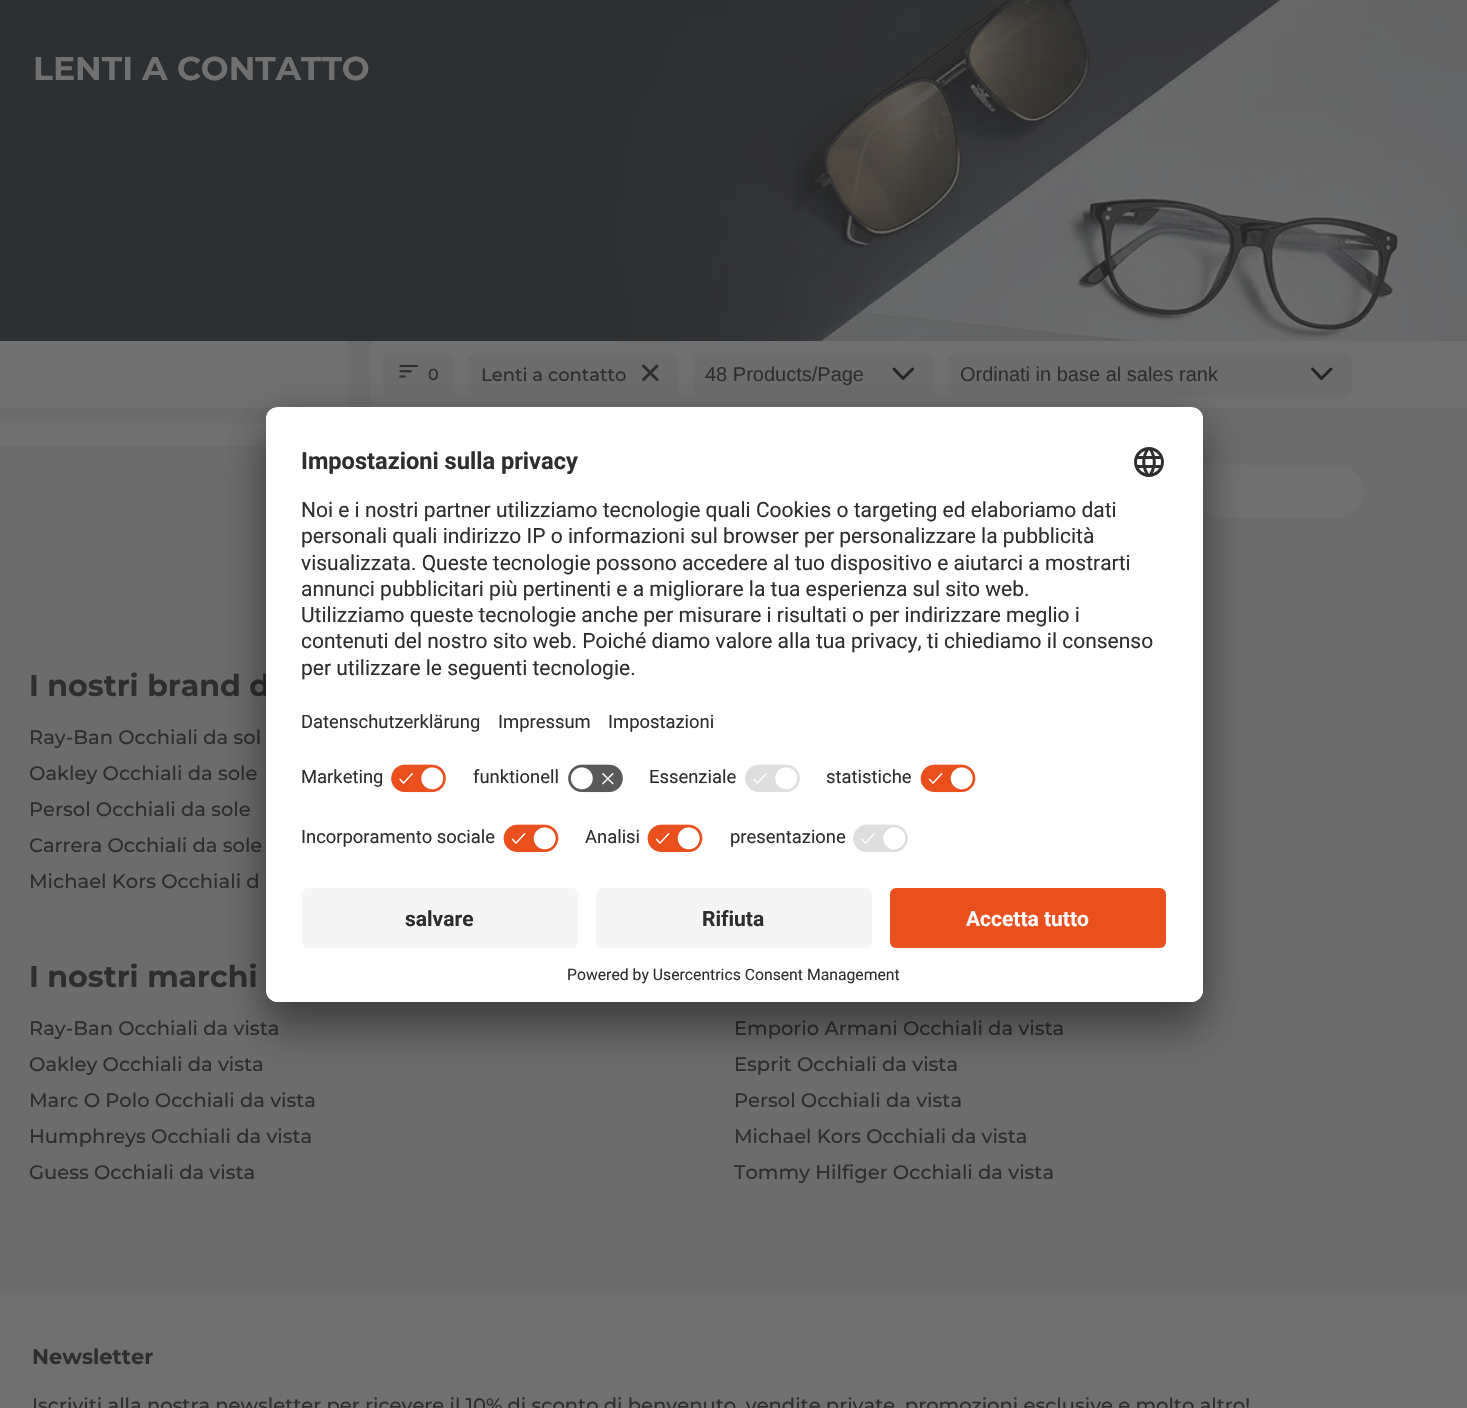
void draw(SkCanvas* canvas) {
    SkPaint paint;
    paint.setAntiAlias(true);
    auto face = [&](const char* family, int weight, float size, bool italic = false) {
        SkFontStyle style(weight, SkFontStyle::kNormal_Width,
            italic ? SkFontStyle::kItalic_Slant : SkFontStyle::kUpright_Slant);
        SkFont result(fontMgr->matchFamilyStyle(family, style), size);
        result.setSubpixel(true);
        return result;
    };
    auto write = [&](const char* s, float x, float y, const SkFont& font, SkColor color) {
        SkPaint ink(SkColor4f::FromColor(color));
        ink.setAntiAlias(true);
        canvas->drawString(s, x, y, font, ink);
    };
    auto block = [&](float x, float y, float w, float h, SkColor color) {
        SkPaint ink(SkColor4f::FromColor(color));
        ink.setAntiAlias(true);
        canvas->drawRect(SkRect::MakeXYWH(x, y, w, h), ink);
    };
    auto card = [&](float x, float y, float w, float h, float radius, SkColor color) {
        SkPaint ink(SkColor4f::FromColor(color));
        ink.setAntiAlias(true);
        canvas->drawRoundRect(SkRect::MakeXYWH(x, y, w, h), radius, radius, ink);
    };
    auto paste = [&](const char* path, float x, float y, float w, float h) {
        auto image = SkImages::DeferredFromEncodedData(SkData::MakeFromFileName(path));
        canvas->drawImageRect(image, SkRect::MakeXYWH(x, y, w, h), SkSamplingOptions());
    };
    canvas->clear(SkColorSetRGB(108, 108, 108));
    paste("pic1.png", 0, 0, 1467, 341);
    auto kFont1 = face("Montserrat", 700, 33);
    write("LENTI A CONTATTO", 33, 80, kFont1, SkColorSetRGB(112, 112, 112));
    block(0, 341, 348, 67, SkColorSetRGB(112, 112, 112));
    block(0, 423, 266, 23, SkColorSetRGB(112, 112, 112));
    block(371, 341, 1096, 67, SkColorSetRGB(112, 112, 112));
    card(383, 353, 70, 43, 8, SkColorSetRGB(108, 108, 108));
    paste("pic2.png", 399, 365, 20, 13);
    auto kFont2 = face("Montserrat", 500, 16);
    write("0", 428, 380, kFont2, SkColorSetRGB(46, 46, 46));
    card(468, 353, 210, 43, 8, SkColorSetRGB(108, 108, 108));
    auto kFont3 = face("Montserrat", 500, 18);
    write("Lenti a contatto", 481, 381, kFont3, SkColorSetRGB(46, 46, 46));
    paint.setStyle(SkPaint::kStroke_Style);
    paint.setStrokeWidth(3);
    paint.setStrokeCap(SkPaint::kRound_Cap);
    paint.setColor(SkColorSetRGB(46, 46, 46));
    canvas->drawPath(SkPathBuilder().moveTo(643.5f, 379.5f).lineTo(657, 366).moveTo(657, 379.5f).lineTo(643.5f, 366).detach(), paint);
    card(693, 353, 240, 43, 8, SkColorSetRGB(108, 108, 108));
    paint.setStrokeJoin(SkPaint::kRound_Join);
    paint.setColor(SkColorSetRGB(36, 36, 36));
    canvas->drawPath(SkPathBuilder().moveTo(912.5f, 369).lineTo(903, 378.5f).lineTo(894, 369).detach(), paint);
    auto kFont4 = face("Liberation Sans", 400, 20);
    write("48 Products/Page", 705, 381, kFont4, SkColorSetRGB(46, 46, 46));
    card(948, 353, 404, 43, 8, SkColorSetRGB(108, 108, 108));
    canvas->drawPath(SkPathBuilder().moveTo(1331, 369).lineTo(1321.5f, 378.5f).lineTo(1312.5f, 369).detach(), paint);
    write("Ordinati in base al sales rank", 960, 381, kFont4, SkColorSetRGB(46, 46, 46));
    card(486, 465, 878, 53, 26.5f, SkColorSetRGB(112, 112, 112));
    auto kFont5 = face("Montserrat", 700, 30);
    write("I nostri brand d", 29, 696, kFont5, SkColorSetRGB(46, 46, 46));
    auto kFont6 = face("Montserrat", 500, 19.5f);
    write("Ray-Ban Occhiali da sol", 29, 744, kFont6, SkColorSetRGB(46, 46, 46));
    write("Oakley Occhiali da sole", 29, 780, kFont6, SkColorSetRGB(46, 46, 46));
    write("Persol Occhiali da sole", 29, 816, kFont6, SkColorSetRGB(46, 46, 46));
    write("Carrera Occhiali da sole", 29, 852, kFont6, SkColorSetRGB(46, 46, 46));
    write("Michael Kors Occhiali d", 29, 888, kFont6, SkColorSetRGB(46, 46, 46));
    write("I nostri marchi", 29, 987, kFont5, SkColorSetRGB(46, 46, 46));
    write("Ray-Ban Occhiali da vista", 29, 1035, kFont6, SkColorSetRGB(46, 46, 46));
    write("Oakley Occhiali da vista", 29, 1071, kFont6, SkColorSetRGB(46, 46, 46));
    write("Marc O Polo Occhiali da vista", 29, 1107, kFont6, SkColorSetRGB(46, 46, 46));
    write("Humphreys Occhiali da vista", 29, 1143, kFont6, SkColorSetRGB(46, 46, 46));
    write("Guess Occhiali da vista", 29, 1179, kFont6, SkColorSetRGB(46, 46, 46));
    write("Emporio Armani Occhiali da vista", 734, 1035, kFont6, SkColorSetRGB(46, 46, 46));
    write("Esprit Occhiali da vista", 734, 1071, kFont6, SkColorSetRGB(46, 46, 46));
    write("Persol Occhiali da vista", 734, 1107, kFont6, SkColorSetRGB(46, 46, 46));
    write("Michael Kors Occhiali da vista", 734, 1143, kFont6, SkColorSetRGB(46, 46, 46));
    write("Tommy Hilfiger Occhiali da vista", 734, 1179, kFont6, SkColorSetRGB(46, 46, 46));
    block(0, 1295, 1467, 113, SkColorSetRGB(112, 112, 112));
    auto kFont7 = face("Montserrat", 700, 21);
    write("Newsletter", 32, 1364, kFont7, SkColorSetRGB(46, 46, 46));
    write("Iscriviti alla nostra newsletter per ricevere il 10% di sconto di benvenuto, vendite private, promozioni esclusive e molto altro!", 32, 1412, kFont6, SkColorSetRGB(46, 46, 46));
    paint.setStyle(SkPaint::kFill_Style);
    paint.setColor(SkColorSetARGB(77, 0, 0, 0));
    paint.setMaskFilter(SkMaskFilter::MakeBlur(kNormal_SkBlurStyle, 21));
    canvas->drawRoundRect(SkRect::MakeXYWH(266, 437, 937, 595), 12, 12, paint);
    paint.setMaskFilter(nullptr);
    paint.setColor(SkColorSetARGB(56, 0, 0, 0));
    paint.setMaskFilter(SkMaskFilter::MakeBlur(kNormal_SkBlurStyle, 19.5f));
    canvas->drawRoundRect(SkRect::MakeXYWH(266, 414, 937, 596), 12, 12, paint);
    paint.setMaskFilter(nullptr);
    card(266, 407, 937, 595, 12, SK_ColorWHITE);
    canvas->save();
    canvas->clipPath(SkPathBuilder().moveTo(278, 407).lineTo(1191, 407).cubicTo(1197.5f, 407, 1203, 412.5f, 1203, 419).lineTo(1203, 990).cubicTo(1203, 996.5f, 1197.5f, 1002, 1191, 1002).lineTo(278, 1002).cubicTo(271.5f, 1002, 266, 996.5f, 266, 990).lineTo(266, 419).cubicTo(266, 412.5f, 271.5f, 407, 278, 407).close().detach(), true);
    canvas->clipPath(SkPathBuilder().moveTo(278, 407).lineTo(1191, 407).cubicTo(1197.5f, 407, 1203, 412.5f, 1203, 419).lineTo(1203, 876).lineTo(266, 876).lineTo(266, 419).cubicTo(266, 412.5f, 271.5f, 407, 278, 407).close().detach(), true);
    block(266, 408, 937, 468, SK_ColorWHITE);
    block(266, 408, 937, 348, SK_ColorWHITE);
    canvas->restore();
    auto kFont8 = face("Roboto", 700, 23.6f);
    write("Impostazioni sulla privacy", 301, 469, kFont8, SkColorSetRGB(46, 46, 46));
    paste("pic3.png", 1134, 447, 30, 30);
    auto kFont9 = face("Roboto", 400, 21);
    write("Noi e i nostri partner utilizziamo tecnologie quali Cookies o targeting ed elaboriamo dati", 301, 517, kFont9, SkColorSetRGB(46, 46, 46));
    write("personali quali indirizzo IP o informazioni sul browser per personalizzare la pubblicità", 301, 543, kFont9, SkColorSetRGB(46, 46, 46));
    write("visualizzata. Queste tecnologie possono accedere al tuo dispositivo e aiutarci a mostrarti", 301, 570, kFont9, SkColorSetRGB(46, 46, 46));
    write("annunci pubblicitari più pertinenti e a migliorare la tua esperienza sul sito web.", 301, 596, kFont9, SkColorSetRGB(46, 46, 46));
    write("Utilizziamo queste tecnologie anche per misurare i risultati o per indirizzare meglio i", 301, 622, kFont9, SkColorSetRGB(46, 46, 46));
    canvas->save();
    canvas->clipRect(SkRect::MakeXYWH(302, 492, 865, 195));
    write("contenuti del nostro sito web. Poiché diamo valore alla tua privacy, ti chiediamo il consenso", 301, 648, kFont9, SkColorSetRGB(46, 46, 46));
    canvas->restore();
    write("per utilizzare le seguenti tecnologie.", 301, 675, kFont9, SkColorSetRGB(46, 46, 46));
    auto kFont10 = face("Roboto", 400, 18.4f);
    write("Datenschutzerklärung", 301, 728, kFont10, SkColorSetRGB(46, 46, 46));
    write("Impressum", 498, 728, kFont10, SkColorSetRGB(46, 46, 46));
    write("Impostazioni", 608, 728, kFont10, SkColorSetRGB(46, 46, 46));
    write("Marketing", 301, 783, kFont10, SkColorSetRGB(46, 46, 46));
    paste("pic4.png", 391, 764, 56, 29);
    write("funktionell", 473, 783, kFont10, SkColorSetRGB(46, 46, 46));
    paste("pic5.png", 568, 764, 55, 29);
    write("Essenziale", 649, 783, kFont10, SkColorSetRGB(46, 46, 46));
    paste("pic6.png", 745, 764, 55, 28);
    write("statistiche", 826, 783, kFont10, SkColorSetRGB(46, 46, 46));
    paste("pic7.png", 920, 764, 56, 29);
    write("Incorporamento sociale", 301, 843, kFont10, SkColorSetRGB(46, 46, 46));
    paste("pic7.png", 503, 824, 56, 29);
    write("Analisi", 585, 843, kFont10, SkColorSetRGB(46, 46, 46));
    paste("pic7.png", 647, 824, 56, 29);
    write("presentazione", 730, 843, kFont10, SkColorSetRGB(46, 46, 46));
    paste("pic6.png", 853, 824, 55, 28);
    paint.setColor(SK_ColorWHITE);
    canvas->drawPath(SkPathBuilder().moveTo(266, 876).lineTo(1203, 876).lineTo(1203, 990).cubicTo(1203, 996.5f, 1197.5f, 1002, 1191, 1002).lineTo(278, 1002).cubicTo(271.5f, 1002, 266, 996.5f, 266, 990).close().detach(), paint);
    card(302, 888, 276, 60, 6, SkColorSetRGB(245, 245, 245));
    auto kFont11 = face("Roboto", 700, 21);
    write("salvare", 405, 926, kFont11, SkColorSetRGB(46, 46, 46));
    card(596, 888, 276, 60, 6, SkColorSetRGB(245, 245, 245));
    write("Rifiuta", 702, 926, kFont11, SkColorSetRGB(46, 46, 46));
    card(890, 888, 276, 60, 6, SkColorSetRGB(233, 80, 29));
    write("Accetta tutto", 966, 926, kFont11, SkColorSetRGB(250, 250, 250));
    auto kFont12 = face("Roboto", 400, 15.75f);
    write("Powered by Usercentrics Consent Management", 567, 980, kFont12, SkColorSetRGB(46, 46, 46));
}
